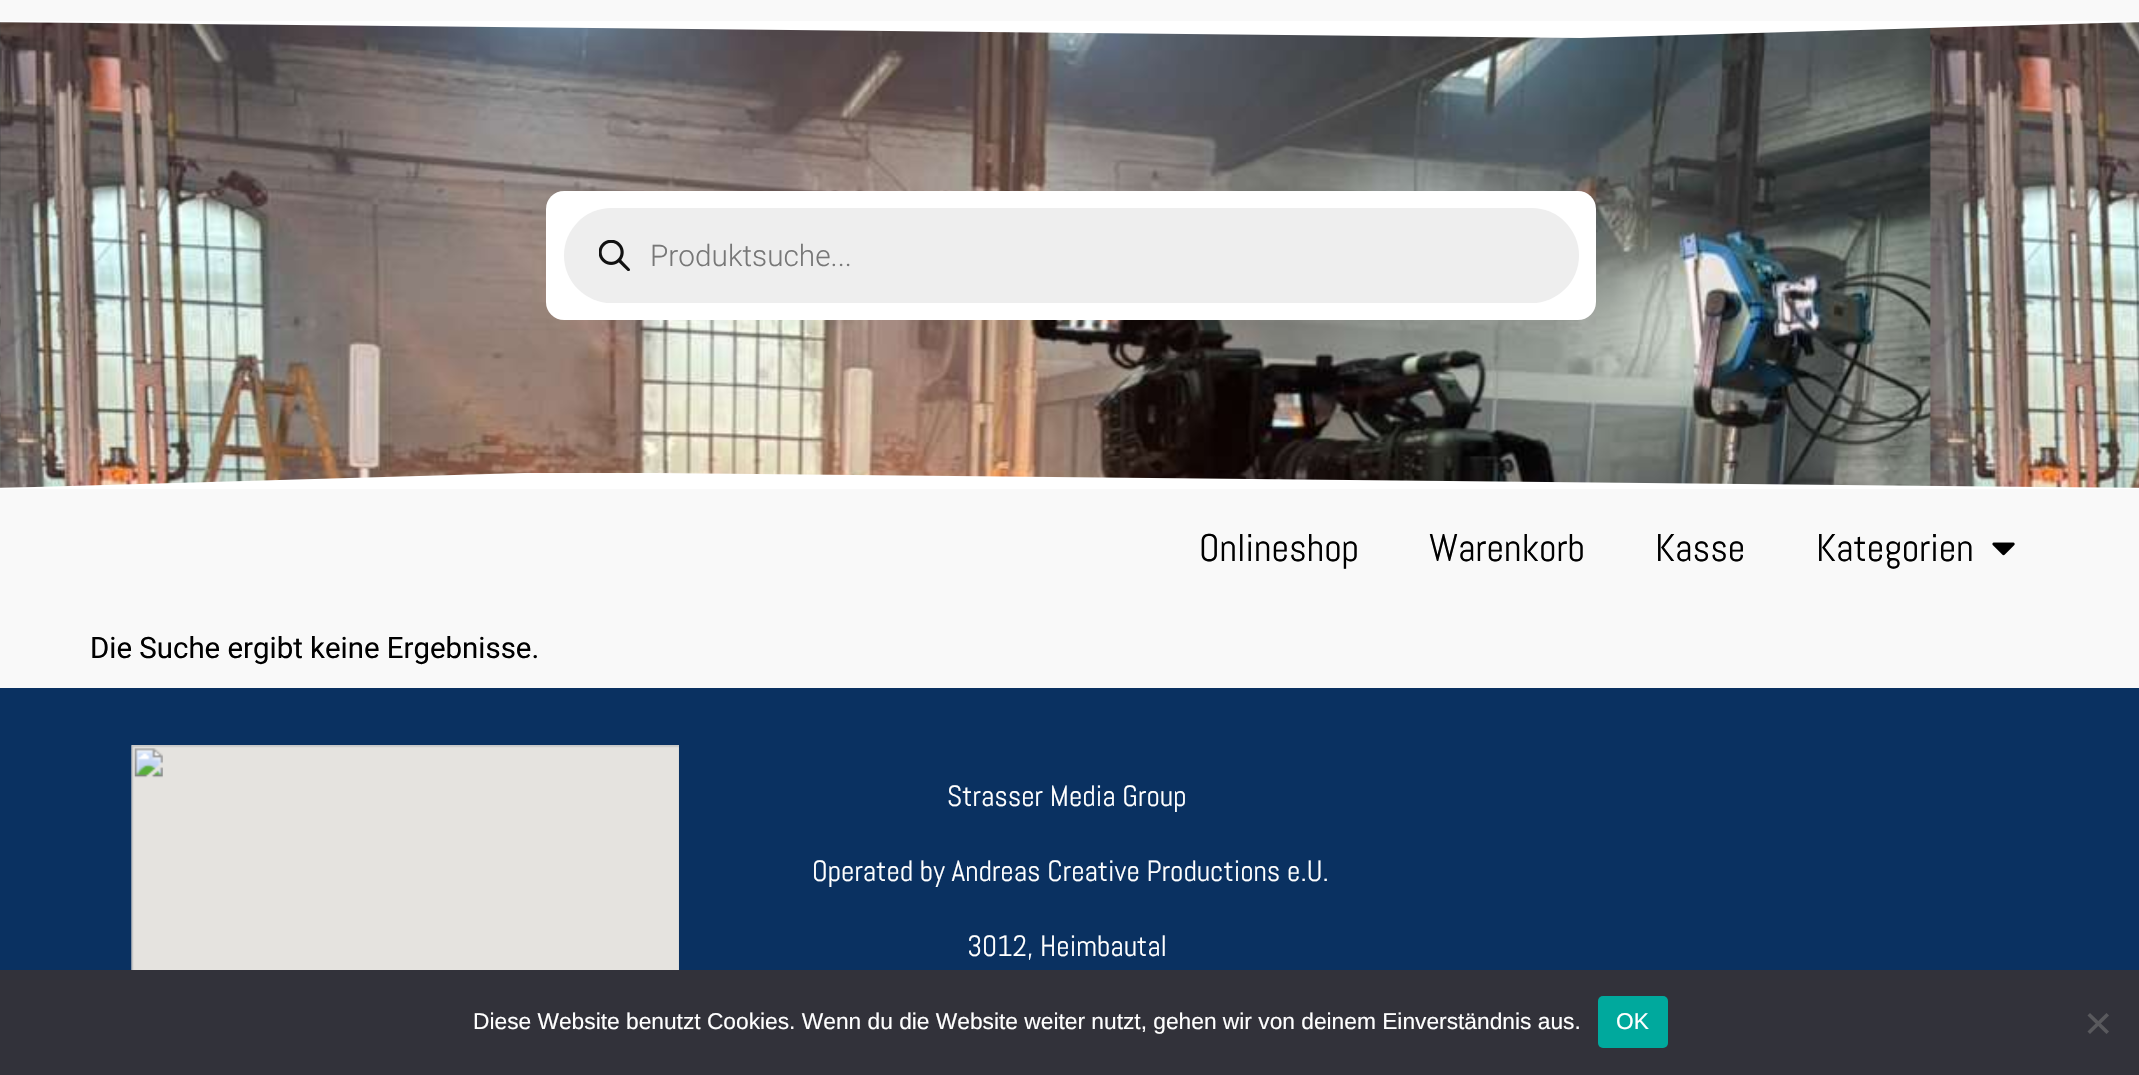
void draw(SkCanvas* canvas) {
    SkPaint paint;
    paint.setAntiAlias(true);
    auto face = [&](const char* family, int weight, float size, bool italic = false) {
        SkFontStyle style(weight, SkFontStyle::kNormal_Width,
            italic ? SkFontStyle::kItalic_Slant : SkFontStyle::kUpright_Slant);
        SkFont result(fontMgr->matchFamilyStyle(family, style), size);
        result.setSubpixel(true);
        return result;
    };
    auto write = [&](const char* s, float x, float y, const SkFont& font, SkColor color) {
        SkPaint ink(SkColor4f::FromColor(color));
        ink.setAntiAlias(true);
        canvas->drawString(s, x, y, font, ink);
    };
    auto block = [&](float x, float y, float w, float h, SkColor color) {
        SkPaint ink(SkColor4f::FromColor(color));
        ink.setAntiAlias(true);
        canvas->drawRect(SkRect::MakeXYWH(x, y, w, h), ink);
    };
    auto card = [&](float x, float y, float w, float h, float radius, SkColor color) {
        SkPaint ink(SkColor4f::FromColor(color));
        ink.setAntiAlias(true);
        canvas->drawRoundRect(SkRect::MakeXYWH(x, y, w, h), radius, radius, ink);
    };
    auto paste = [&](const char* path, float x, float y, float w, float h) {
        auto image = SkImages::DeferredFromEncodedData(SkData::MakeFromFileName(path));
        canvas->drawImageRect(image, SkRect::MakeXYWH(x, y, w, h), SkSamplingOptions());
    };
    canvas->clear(SkColorSetRGB(249, 249, 249));
    paste("pic1.png", 0, 22, 2139, 466);
    paint.setColor(SK_ColorWHITE);
    canvas->drawPath(SkPathBuilder().moveTo(1581, 38).lineTo(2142, 22).lineTo(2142, 21).lineTo(0, 21).lineTo(0, 22).close().detach(), paint);
    card(546, 191, 1050, 129, 18, SK_ColorWHITE);
    card(564, 208, 1015, 95, 47.5f, SkColorSetRGB(238, 238, 238));
    paste("pic2.png", 599, 240, 31, 31);
    auto kFont1 = face("Roboto", 300, 29.75f);
    write("Produktsuche...", 650, 266, kFont1, SkColorSetRGB(119, 119, 119));
    canvas->save();
    canvas->clipRect(SkRect::MakeXYWH(0, 473, 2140, 17));
    canvas->drawPath(SkPathBuilder().moveTo(559, 472).lineTo(-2, 488).lineTo(-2, 489).lineTo(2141, 489).lineTo(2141, 488).close().detach(), paint);
    canvas->restore();
    auto kFont2 = face("Abel", 400, 38.5f);
    write("Onlineshop", 1199, 561, kFont2, SK_ColorBLACK);
    write("Warenkorb", 1429, 561, kFont2, SK_ColorBLACK);
    write("Kasse", 1655, 561, kFont2, SK_ColorBLACK);
    write("Kategorien", 1816, 561, kFont2, SK_ColorBLACK);
    paste("pic3.png", 1992, 542, 23, 14);
    auto kFont3 = face("Roboto", 400, 29.4f);
    write("Die Suche ergibt keine Ergebnisse.", 90, 658, kFont3, SK_ColorBLACK);
    block(0, 688, 2139, 282, SkColorSetRGB(10, 49, 97));
    paste("pic4.png", 131, 745, 548, 225);
    auto kFont4 = face("Abel", 400, 29.4f);
    write("Strasser Media Group", 947, 806, kFont4, SK_ColorWHITE);
    write("Operated by Andreas Creative Productions e.U.", 812, 881, kFont4, SK_ColorWHITE);
    write("3012, Heimbautal", 967, 956, kFont4, SK_ColorWHITE);
    block(0, 970, 2139, 105, SkColorSetRGB(50, 50, 58));
    auto kFont5 = face("Liberation Sans", 400, 22.75f);
    write("Diese Website benutzt Cookies. Wenn du die Website weiter nutzt, gehen wir von deinem Einverständnis aus.", 473, 1029, kFont5, SK_ColorWHITE);
    card(1598, 996, 70, 52, 5, SkColorSetRGB(0, 169, 157));
    write("OK", 1616, 1029, kFont5, SK_ColorWHITE);
    paint.setColor(SkColorSetRGB(89, 89, 93));
    canvas->drawPath(SkPathBuilder().moveTo(2106.5f, 1013).lineTo(2109, 1015.5f).lineTo(2090, 1034).lineTo(2087.5f, 1031.5f).close().detach(), paint);
    canvas->drawPath(SkPathBuilder().moveTo(2087.5f, 1015.5f).lineTo(2090, 1013).lineTo(2109, 1031.5f).lineTo(2106.5f, 1034).close().detach(), paint);
}
